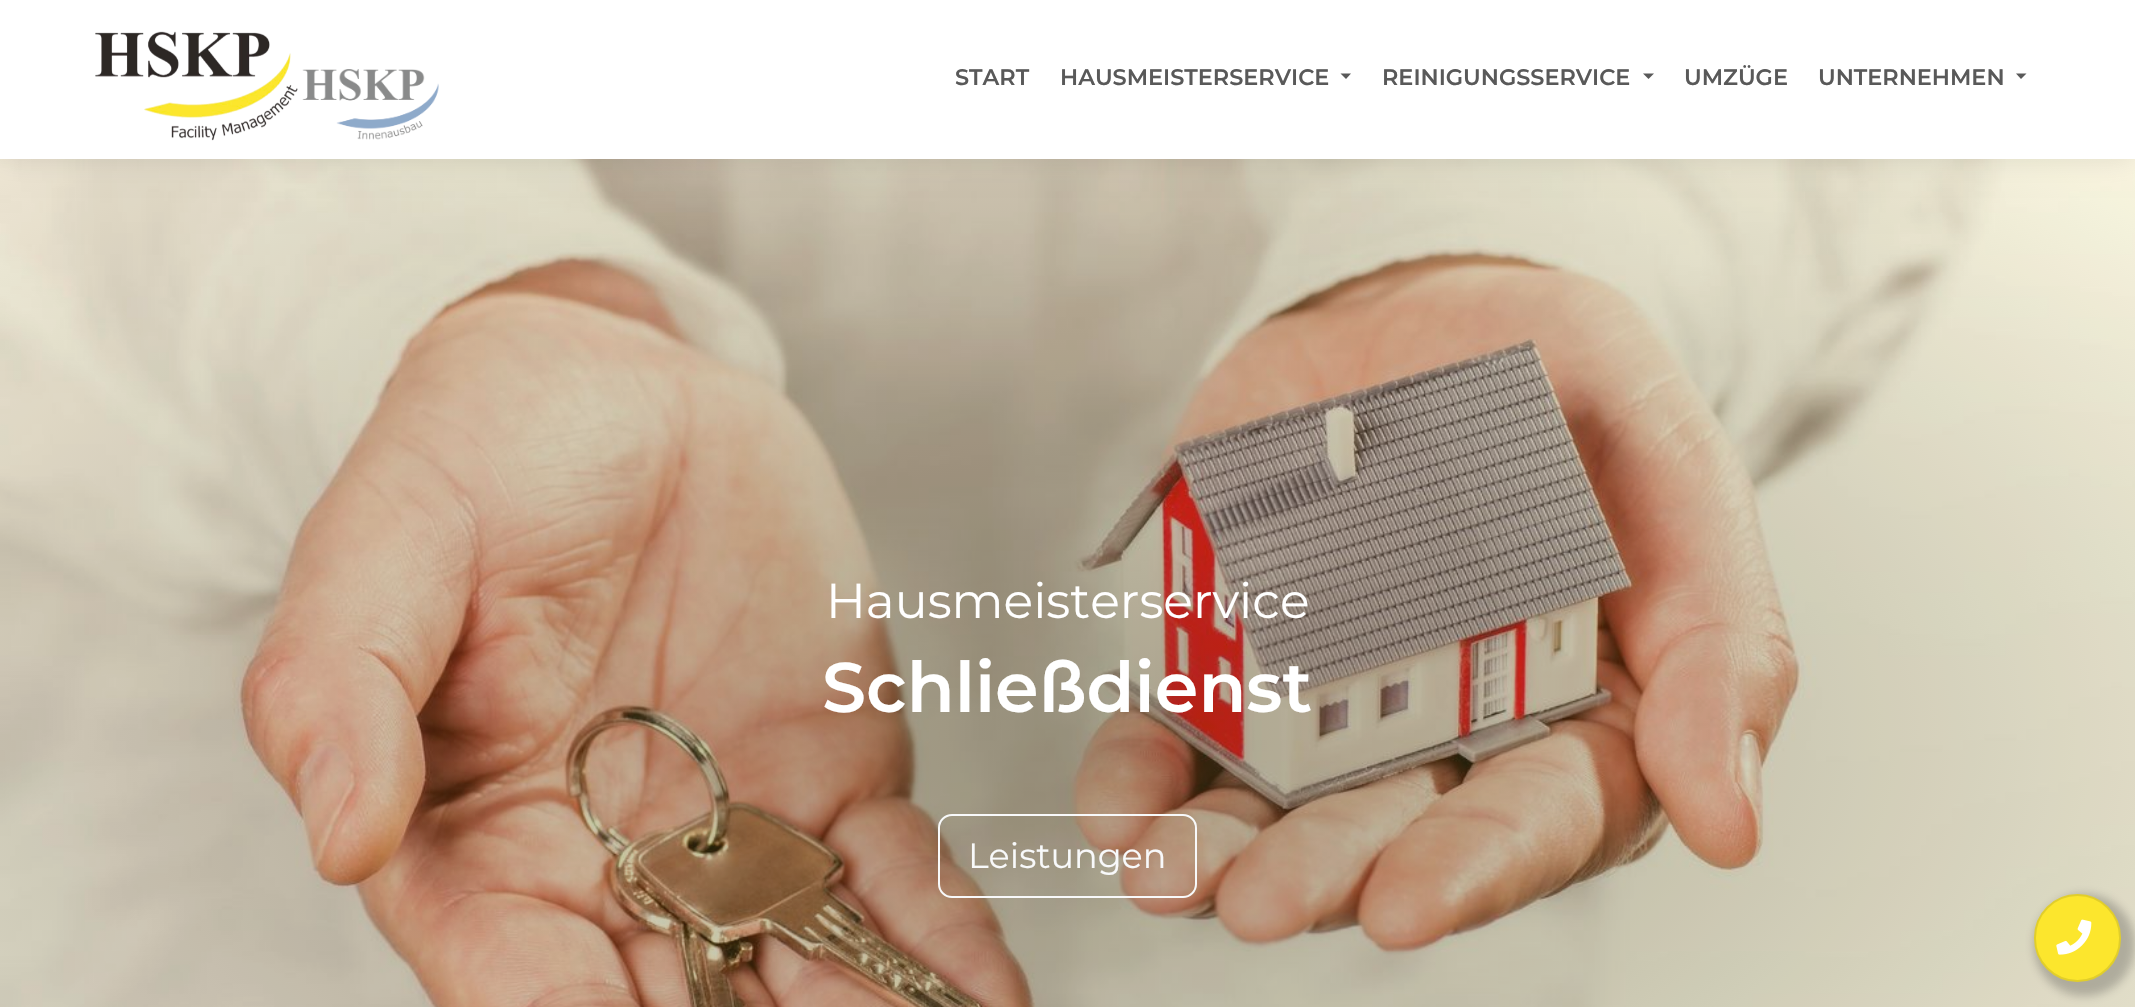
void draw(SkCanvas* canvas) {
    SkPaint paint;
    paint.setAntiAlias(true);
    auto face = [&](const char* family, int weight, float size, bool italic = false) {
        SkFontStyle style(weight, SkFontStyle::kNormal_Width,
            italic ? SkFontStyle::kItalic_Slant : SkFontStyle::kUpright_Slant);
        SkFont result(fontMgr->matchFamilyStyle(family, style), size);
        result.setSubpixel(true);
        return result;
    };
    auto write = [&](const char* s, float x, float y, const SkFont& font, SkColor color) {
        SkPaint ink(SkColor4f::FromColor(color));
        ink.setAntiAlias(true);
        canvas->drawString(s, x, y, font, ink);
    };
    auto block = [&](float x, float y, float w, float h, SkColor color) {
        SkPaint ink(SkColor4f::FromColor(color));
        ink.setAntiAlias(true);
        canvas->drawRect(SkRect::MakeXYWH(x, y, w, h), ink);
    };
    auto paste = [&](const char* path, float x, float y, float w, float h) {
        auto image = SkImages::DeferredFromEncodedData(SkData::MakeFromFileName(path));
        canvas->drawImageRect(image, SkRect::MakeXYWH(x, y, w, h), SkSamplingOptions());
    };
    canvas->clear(SK_ColorWHITE);
    paste("pic4.png", 0, 159, 2135, 848);
    paint.setColor(SkColorSetARGB(26, 0, 0, 0));
    paint.setMaskFilter(SkMaskFilter::MakeBlur(kNormal_SkBlurStyle, 13));
    canvas->drawRect(SkRect::MakeXYWH(0, 0, 2135, 159), paint);
    paint.setMaskFilter(nullptr);
    block(0, 0, 2135, 159, SK_ColorWHITE);
    paste("pic1.png", 95, 31, 203, 110);
    paste("pic2.png", 302, 69, 137, 71);
    auto kFont1 = face("Montserrat", 600, 22.4f);
    write("START", 955, 85, kFont1, SkColorSetRGB(89, 89, 89));
    write("HAUSMEISTERSERVICE", 1060, 85, kFont1, SkColorSetRGB(89, 89, 89));
    paint.setColor(SkColorSetRGB(89, 89, 89));
    canvas->drawPath(SkPathBuilder().moveTo(1340.5f, 73.5f).lineTo(1351, 73.5f).lineTo(1346, 79).close().detach(), paint);
    write("REINIGUNGSSERVICE", 1382, 85, kFont1, SkColorSetRGB(89, 89, 89));
    canvas->drawPath(SkPathBuilder().moveTo(1643, 73.5f).lineTo(1654, 73.5f).lineTo(1648.5f, 79).close().detach(), paint);
    write("UMZÜGE", 1684, 85, kFont1, SkColorSetRGB(89, 89, 89));
    write("UNTERNEHMEN", 1818, 85, kFont1, SkColorSetRGB(89, 89, 89));
    canvas->drawPath(SkPathBuilder().moveTo(2016, 73.5f).lineTo(2026.5f, 73.5f).lineTo(2021, 79).close().detach(), paint);
    paint.setColor(SkColorSetARGB(69, 45, 45, 45));
    paint.setMaskFilter(SkMaskFilter::MakeBlur(kNormal_SkBlurStyle, 5));
    canvas->drawRoundRect(SkRect::MakeXYWH(2034, 894, 101, 102), 50.5f, 50.5f, paint);
    paint.setMaskFilter(nullptr);
    paint.setColor(SkColorSetRGB(252, 230, 45));
    canvas->drawRoundRect(SkRect::MakeXYWH(2035, 895, 85, 86), 42.5f, 42.5f, paint);
    paint.setStyle(SkPaint::kStroke_Style);
    paint.setStrokeWidth(2);
    paint.setColor(SkColorSetRGB(225, 206, 42));
    canvas->drawRoundRect(SkRect::MakeXYWH(2035, 895, 85, 86), 42.5f, 42.5f, paint);
    paste("pic3.png", 2056, 919, 36, 36);
    auto kFont2 = face("Montserrat", 400, 49);
    write("Hausmeisterservice", 826, 618, kFont2, SK_ColorWHITE);
    auto kFont3 = face("Montserrat", 600, 70);
    write("Schließdienst", 822, 712, kFont3, SK_ColorWHITE);
    paint.setColor(SkColorSetRGB(248, 249, 250));
    canvas->drawRoundRect(SkRect::MakeXYWH(939, 815, 257, 82), 13, 13, paint);
    auto kFont4 = face("Montserrat", 400, 35);
    write("Leistungen", 968, 868, kFont4, SkColorSetRGB(248, 249, 250));
}
